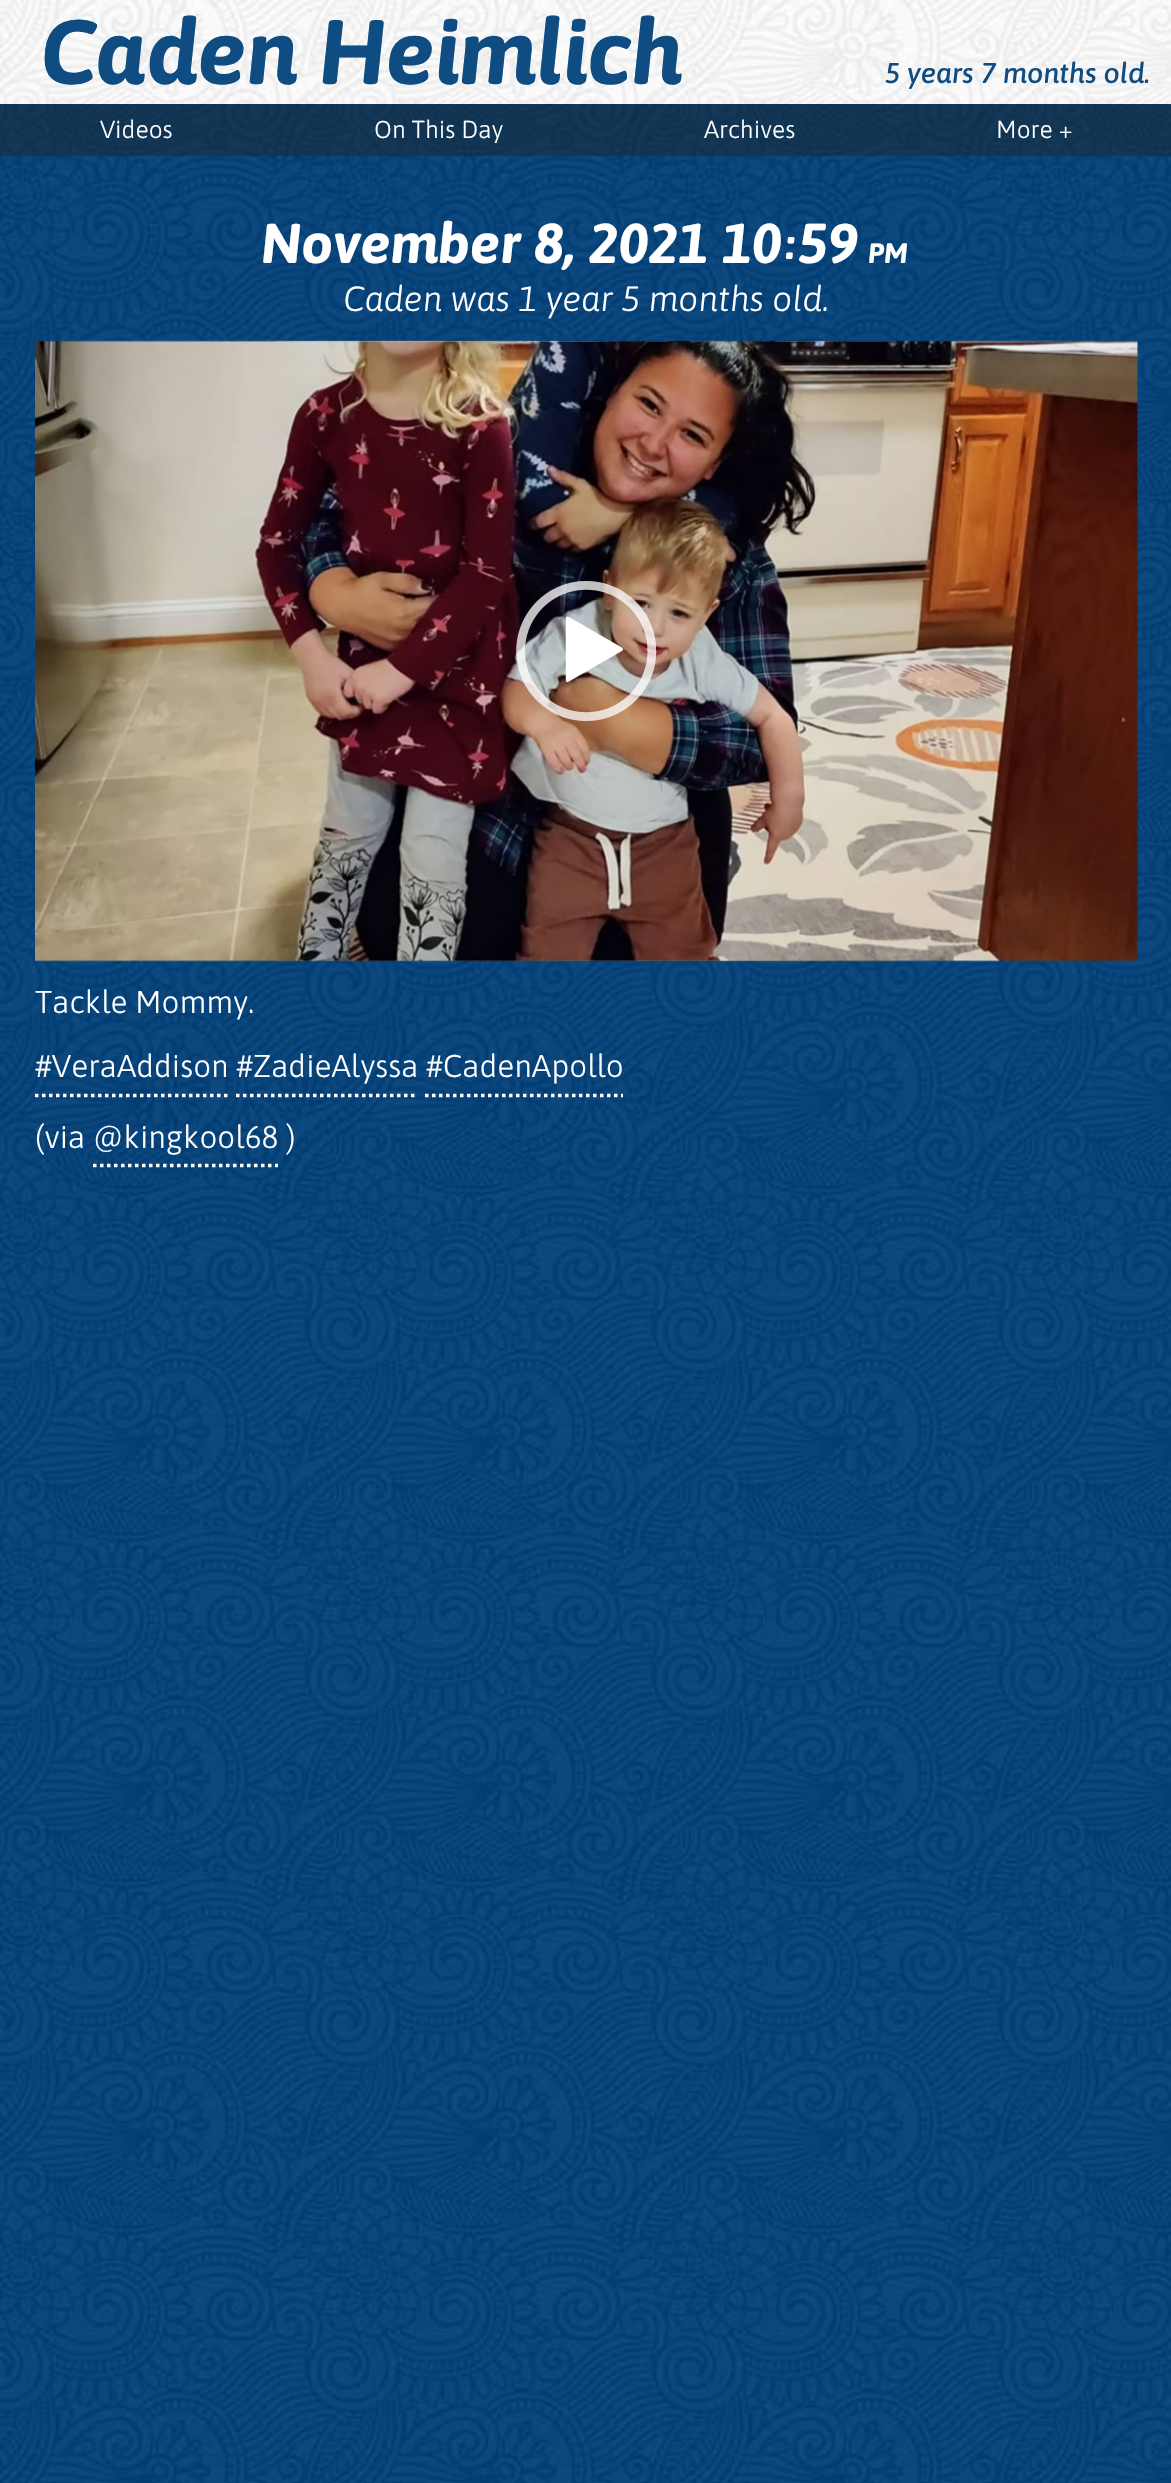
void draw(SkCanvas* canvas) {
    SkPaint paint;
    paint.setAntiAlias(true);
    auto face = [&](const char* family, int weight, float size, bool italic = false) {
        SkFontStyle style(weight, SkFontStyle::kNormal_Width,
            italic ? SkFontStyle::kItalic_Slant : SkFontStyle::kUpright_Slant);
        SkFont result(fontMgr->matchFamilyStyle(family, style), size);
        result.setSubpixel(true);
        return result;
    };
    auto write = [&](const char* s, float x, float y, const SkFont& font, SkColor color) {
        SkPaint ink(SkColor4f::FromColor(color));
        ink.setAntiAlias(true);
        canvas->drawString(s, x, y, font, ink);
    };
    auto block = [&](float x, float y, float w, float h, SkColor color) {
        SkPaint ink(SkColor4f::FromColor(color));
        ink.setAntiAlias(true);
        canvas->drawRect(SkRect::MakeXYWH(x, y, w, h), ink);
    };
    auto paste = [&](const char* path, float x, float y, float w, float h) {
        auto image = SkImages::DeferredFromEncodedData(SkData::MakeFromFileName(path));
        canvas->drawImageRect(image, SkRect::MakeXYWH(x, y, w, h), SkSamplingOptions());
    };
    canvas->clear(SK_ColorWHITE);
    paste("pic1.png", 0, 104, 1171, 2379);
    paste("pic2.png", 0, 0, 1171, 104);
    auto kFont1 = face("Asap", 700, 91, true);
    write("Caden Heimlich", 40, 84, kFont1, SkColorSetRGB(15, 76, 129));
    auto kFont2 = face("Asap", 500, 28.5f, true);
    write("5 years 7 months old.", 885, 83, kFont2, SkColorSetRGB(15, 76, 129));
    block(0, 104, 1171, 52, SkColorSetARGB(128, 27, 38, 44));
    auto kFont3 = face("Asap", 300, 24.5f);
    write("Videos", 100, 138, kFont3, SK_ColorWHITE);
    write("On This Day", 374, 138, kFont3, SK_ColorWHITE);
    write("Archives", 704, 138, kFont3, SK_ColorWHITE);
    write("More +", 996, 138, kFont3, SK_ColorWHITE);
    auto kFont4 = face("Asap", 700, 56, true);
    write("November 8, 2021 10", 261, 263, kFont4, SK_ColorWHITE);
    auto kFont5 = face("Asap", 700, 42, true);
    write(":", 786, 259, kFont5, SK_ColorWHITE);
    write("59", 798, 263, kFont4, SK_ColorWHITE);
    auto kFont6 = face("Asap", 700, 28, true);
    write("PM", 868, 263, kFont6, SK_ColorWHITE);
    auto kFont7 = face("Asap", 300, 35, true);
    write("Caden was 1 year 5 months old.", 343, 311, kFont7, SK_ColorWHITE);
    paste("pic5.png", 276, 341, 620, 620);
    paste("pic3.png", 35, 340, 1103, 622);
    paste("pic4.png", 516, 581, 140, 140);
    auto kFont8 = face("Asap", 300, 31.5f);
    write("Tackle Mommy.", 35, 1013, kFont8, SK_ColorWHITE);
    paint.setStyle(SkPaint::kStroke_Style);
    paint.setStrokeWidth(3.5f);
    paint.setColor(SK_ColorWHITE);
    paint.setPathEffect(SkDashPathEffect::Make({{3.5f, 3.5f}}, 0));
    canvas->drawPath(SkPathBuilder().moveTo(35, 1095.5f).lineTo(229, 1095.5f).detach(), paint);
    paint.setPathEffect(nullptr);
    write("#VeraAddison #ZadieAlyssa #CadenApollo", 35, 1077, kFont8, SK_ColorWHITE);
    paint.setPathEffect(SkDashPathEffect::Make({{3.5f, 3.5f}}, 0));
    canvas->drawPath(SkPathBuilder().moveTo(236, 1095.5f).lineTo(418, 1095.5f).detach(), paint);
    paint.setPathEffect(nullptr);
    paint.setPathEffect(SkDashPathEffect::Make({{3.5f, 3.5f}}, 0));
    canvas->drawPath(SkPathBuilder().moveTo(425, 1095.5f).lineTo(623, 1095.5f).detach(), paint);
    paint.setPathEffect(nullptr);
    write("(via @kingkool68 )", 35, 1148, kFont8, SK_ColorWHITE);
    paint.setPathEffect(SkDashPathEffect::Make({{3.5f, 3.5f}}, 0));
    canvas->drawPath(SkPathBuilder().moveTo(93, 1165.5f).lineTo(278, 1165.5f).detach(), paint);
    paint.setPathEffect(nullptr);
}
